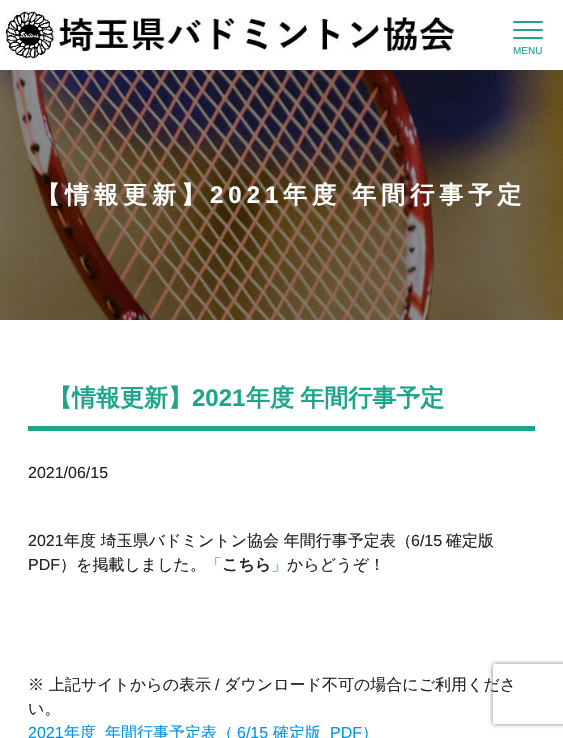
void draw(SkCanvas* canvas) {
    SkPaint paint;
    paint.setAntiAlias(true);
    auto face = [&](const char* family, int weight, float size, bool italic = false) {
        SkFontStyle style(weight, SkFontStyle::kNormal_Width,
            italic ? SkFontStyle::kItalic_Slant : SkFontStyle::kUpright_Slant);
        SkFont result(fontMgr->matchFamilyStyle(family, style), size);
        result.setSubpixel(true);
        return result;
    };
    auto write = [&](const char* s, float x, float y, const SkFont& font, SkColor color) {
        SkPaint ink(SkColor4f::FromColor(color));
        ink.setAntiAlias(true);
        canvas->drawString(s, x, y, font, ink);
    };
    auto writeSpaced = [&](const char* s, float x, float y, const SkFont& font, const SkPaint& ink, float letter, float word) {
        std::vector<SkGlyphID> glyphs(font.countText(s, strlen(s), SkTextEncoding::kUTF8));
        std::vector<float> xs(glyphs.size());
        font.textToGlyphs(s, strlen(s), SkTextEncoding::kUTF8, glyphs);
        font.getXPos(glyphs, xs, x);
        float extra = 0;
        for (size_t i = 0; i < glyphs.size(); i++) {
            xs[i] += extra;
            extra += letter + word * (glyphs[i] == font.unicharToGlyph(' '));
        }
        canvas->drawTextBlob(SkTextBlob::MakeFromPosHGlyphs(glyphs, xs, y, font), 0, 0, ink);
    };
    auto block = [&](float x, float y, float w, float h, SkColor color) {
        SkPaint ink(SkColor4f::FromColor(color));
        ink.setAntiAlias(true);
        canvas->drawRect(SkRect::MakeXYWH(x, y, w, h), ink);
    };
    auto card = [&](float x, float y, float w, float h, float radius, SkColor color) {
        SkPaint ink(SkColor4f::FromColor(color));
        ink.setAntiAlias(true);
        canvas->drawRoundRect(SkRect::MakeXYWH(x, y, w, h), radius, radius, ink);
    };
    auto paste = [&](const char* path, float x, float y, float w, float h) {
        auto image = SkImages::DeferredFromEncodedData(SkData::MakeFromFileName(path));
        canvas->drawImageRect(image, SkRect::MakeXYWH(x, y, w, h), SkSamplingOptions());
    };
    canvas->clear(SK_ColorWHITE);
    paste("pic1.png", 5, 11, 450, 48);
    card(513, 21, 30, 2, 1, SkColorSetRGB(27, 166, 140));
    card(513, 29, 30, 2, 1, SkColorSetRGB(27, 166, 140));
    card(513, 37, 30, 2, 1, SkColorSetRGB(27, 166, 140));
    auto kFont1 = face("Liberation Sans", 400, 10);
    write("MENU", 513, 54, kFont1, SkColorSetRGB(27, 166, 140));
    paste("pic2.png", 0, 70, 563, 250);
    auto kFont2 = face("WenQuanYi Zen Hei", 700, 24);
    paint.setColor(SK_ColorWHITE);
    writeSpaced("【情報更新】", 36, 203, kFont2, paint, 5, 0);
    auto kFont3 = face("Liberation Sans", 700, 24);
    writeSpaced("2021", 210, 203, kFont3, paint, 5, 0);
    writeSpaced("年度 年間行事予定", 283, 203, kFont2, paint, 5, -1);
    block(28, 426, 507, 5, SkColorSetRGB(27, 166, 140));
    write("【情報更新】", 48, 406, kFont2, SkColorSetRGB(27, 166, 140));
    write("2021", 192, 406, kFont3, SkColorSetRGB(27, 166, 140));
    paint.setColor(SkColorSetRGB(27, 166, 140));
    writeSpaced("年度 年間行事予定", 246, 406, kFont2, paint, 0, -1);
    auto kFont4 = face("Liberation Sans", 400, 16);
    write("2021/06/15", 28, 478, kFont4, SkColorSetRGB(34, 34, 34));
    write("2021", 28, 546, kFont4, SkColorSetRGB(34, 34, 34));
    auto kFont5 = face("WenQuanYi Zen Hei", 500, 16);
    write("年度 埼玉県バドミントン協会 年間行事予定表（", 64, 546, kFont5, SkColorSetRGB(34, 34, 34));
    write("6/15", 411, 546, kFont4, SkColorSetRGB(34, 34, 34));
    write("確定版", 446, 546, kFont5, SkColorSetRGB(34, 34, 34));
    write("PDF", 28, 570, kFont4, SkColorSetRGB(34, 34, 34));
    write("）を掲載しました。", 60, 570, kFont5, SkColorSetRGB(34, 34, 34));
    write("「", 206, 570, kFont5, SkColorSetRGB(6, 147, 227));
    auto kFont6 = face("WenQuanYi Zen Hei", 700, 16);
    write("こちら", 222, 570, kFont6, SkColorSetRGB(34, 34, 34));
    write("」", 271, 570, kFont5, SkColorSetRGB(6, 147, 227));
    write("からどうぞ！", 287, 570, kFont5, SkColorSetRGB(34, 34, 34));
    write("※ 上記サイトからの表示", 28, 690, kFont5, SkColorSetRGB(34, 34, 34));
    write("/", 215, 690, kFont4, SkColorSetRGB(34, 34, 34));
    write("ダウンロード不可の場合にご利用くださ", 224, 690, kFont5, SkColorSetRGB(34, 34, 34));
    write("い。", 28, 714, kFont5, SkColorSetRGB(34, 34, 34));
    write("2021", 28, 738, kFont4, SkColorSetRGB(6, 147, 227));
    write("年度", 64, 738, kFont5, SkColorSetRGB(6, 147, 227));
    write("年間行事予定表（", 105, 738, kFont5, SkColorSetRGB(6, 147, 227));
    write("6/15", 237, 738, kFont4, SkColorSetRGB(6, 147, 227));
    write("確定版", 273, 738, kFont5, SkColorSetRGB(6, 147, 227));
    write("PDF", 330, 738, kFont4, SkColorSetRGB(6, 147, 227));
    write("）", 362, 738, kFont5, SkColorSetRGB(6, 147, 227));
    canvas->save();
    canvas->clipPath(SkPathBuilder(SkPathFillType::kEvenOdd).moveTo(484, 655).lineTo(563, 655).lineTo(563, 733).lineTo(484, 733).close().moveTo(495, 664).lineTo(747, 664).cubicTo(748, 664, 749, 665, 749, 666).lineTo(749, 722).cubicTo(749, 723, 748, 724, 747, 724).lineTo(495, 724).cubicTo(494, 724, 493, 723, 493, 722).lineTo(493, 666).cubicTo(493, 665, 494, 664, 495, 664).close().detach(), true);
    paint.setColor(SkColorSetRGB(128, 128, 128));
    paint.setMaskFilter(SkMaskFilter::MakeBlur(kNormal_SkBlurStyle, 2.5f));
    canvas->drawRoundRect(SkRect::MakeXYWH(493, 664, 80, 60), 2, 2, paint);
    paint.setMaskFilter(nullptr);
    canvas->restore();
}
